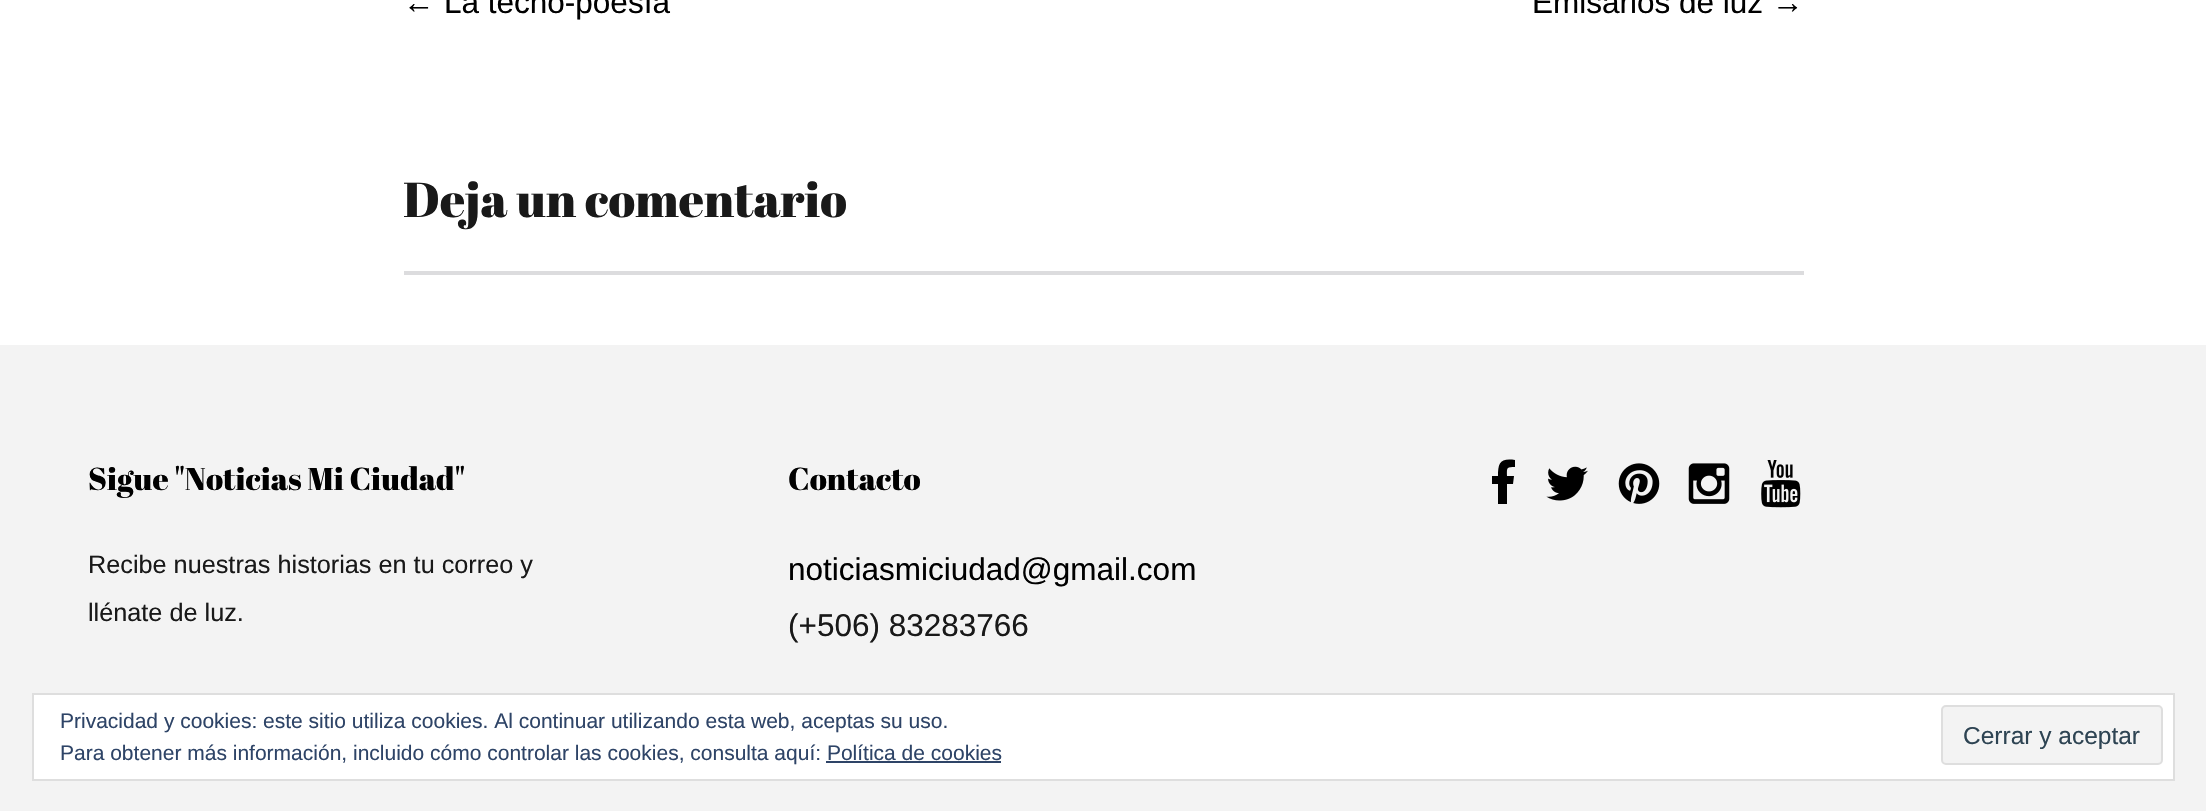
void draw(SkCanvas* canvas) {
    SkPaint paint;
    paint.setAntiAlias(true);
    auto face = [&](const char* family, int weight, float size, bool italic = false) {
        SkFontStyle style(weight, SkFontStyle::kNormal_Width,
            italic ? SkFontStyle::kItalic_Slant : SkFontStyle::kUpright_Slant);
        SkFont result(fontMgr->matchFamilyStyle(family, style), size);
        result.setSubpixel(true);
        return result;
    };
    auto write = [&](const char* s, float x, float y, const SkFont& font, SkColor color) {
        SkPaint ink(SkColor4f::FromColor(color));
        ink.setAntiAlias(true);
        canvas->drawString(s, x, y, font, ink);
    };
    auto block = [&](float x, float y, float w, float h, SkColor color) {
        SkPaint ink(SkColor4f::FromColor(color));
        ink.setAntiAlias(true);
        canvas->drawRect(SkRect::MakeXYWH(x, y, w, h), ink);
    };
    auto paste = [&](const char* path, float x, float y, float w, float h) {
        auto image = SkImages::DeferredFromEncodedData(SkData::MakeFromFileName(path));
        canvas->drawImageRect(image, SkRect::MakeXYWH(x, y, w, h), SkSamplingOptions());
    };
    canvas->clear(SK_ColorWHITE);
    auto kFont1 = face("Liberation Sans", 400, 31.5f);
    write("←", 403, 13, kFont1, SK_ColorBLACK);
    auto kFont2 = face("Arimo", 400, 31.5f);
    write("La tecno-poesía", 444, 13, kFont2, SK_ColorBLACK);
    write("Emisarios de luz", 1532, 13, kFont2, SK_ColorBLACK);
    write("→", 1772, 13, kFont1, SK_ColorBLACK);
    auto kFont3 = face("Abril Fatface", 400, 49);
    write("Deja un comentario", 403, 217, kFont3, SkColorSetRGB(25, 25, 25));
    block(404, 271, 1400, 4, SkColorSetRGB(220, 220, 222));
    block(0, 345, 2206, 466, SkColorSetRGB(243, 243, 243));
    auto kFont4 = face("Abril Fatface", 400, 31.5f);
    write("Sigue \"Noticias Mi Ciudad\"", 88, 490, kFont4, SK_ColorBLACK);
    auto kFont5 = face("Arimo", 400, 25.25f);
    write("Recibe nuestras historias en tu correo y", 88, 573, kFont5, SkColorSetRGB(25, 25, 25));
    write("llénate de luz.", 88, 621, kFont5, SkColorSetRGB(25, 25, 25));
    write("Contacto", 788, 490, kFont4, SK_ColorBLACK);
    write("noticiasmiciudad@gmail.com", 788, 580, kFont2, SK_ColorBLACK);
    write("(+506) 83283766", 788, 636, kFont2, SkColorSetRGB(25, 25, 25));
    paint.setColor(SK_ColorBLACK);
    canvas->drawPath(SkPathBuilder().moveTo(1492, 484).lineTo(1492, 476).lineTo(1498, 476).cubicTo(1498, 463, 1500, 458, 1515, 460).lineTo(1515, 467).cubicTo(1506, 467, 1507, 468, 1507, 476).lineTo(1514, 476).lineTo(1513, 484).lineTo(1507, 484).lineTo(1507, 504).lineTo(1498, 504).lineTo(1498, 484).close().detach(), paint);
    paste("pic1.png", 1546, 466, 42, 35);
    paste("pic2.png", 1618, 463, 42, 41);
    paste("pic3.png", 1688, 463, 42, 41);
    paste("pic4.png", 1761, 460, 40, 48);
    paint.setColor(SK_ColorWHITE);
    canvas->drawRect(SkRect::MakeXYWH(33, 694, 2141, 86), paint);
    paint.setStyle(SkPaint::kStroke_Style);
    paint.setStrokeWidth(2);
    paint.setColor(SkColorSetRGB(222, 222, 222));
    canvas->drawRect(SkRect::MakeXYWH(33, 694, 2141, 86), paint);
    auto kFont6 = face("Arimo", 400, 21);
    write("Privacidad y cookies: este sitio utiliza cookies. Al continuar utilizando esta web, aceptas su uso.", 60, 728, kFont6, SkColorSetRGB(46, 68, 103));
    paint.setStyle(SkPaint::kFill_Style);
    paint.setColor(SkColorSetRGB(243, 243, 243));
    canvas->drawRoundRect(SkRect::MakeXYWH(1942, 706, 220, 58), 4, 4, paint);
    paint.setStyle(SkPaint::kStroke_Style);
    paint.setColor(SkColorSetRGB(222, 222, 222));
    canvas->drawRoundRect(SkRect::MakeXYWH(1942, 706, 220, 58), 4, 4, paint);
    auto kFont7 = face("Arimo", 400, 24.5f);
    write("Cerrar y aceptar", 1963, 744, kFont7, SkColorSetRGB(46, 68, 83));
    write("Para obtener más información, incluido cómo controlar las cookies, consulta aquí: Política de cookies", 60, 760, kFont6, SkColorSetRGB(46, 68, 103));
    block(826, 761, 175, 2, SkColorSetRGB(46, 68, 103));
}
